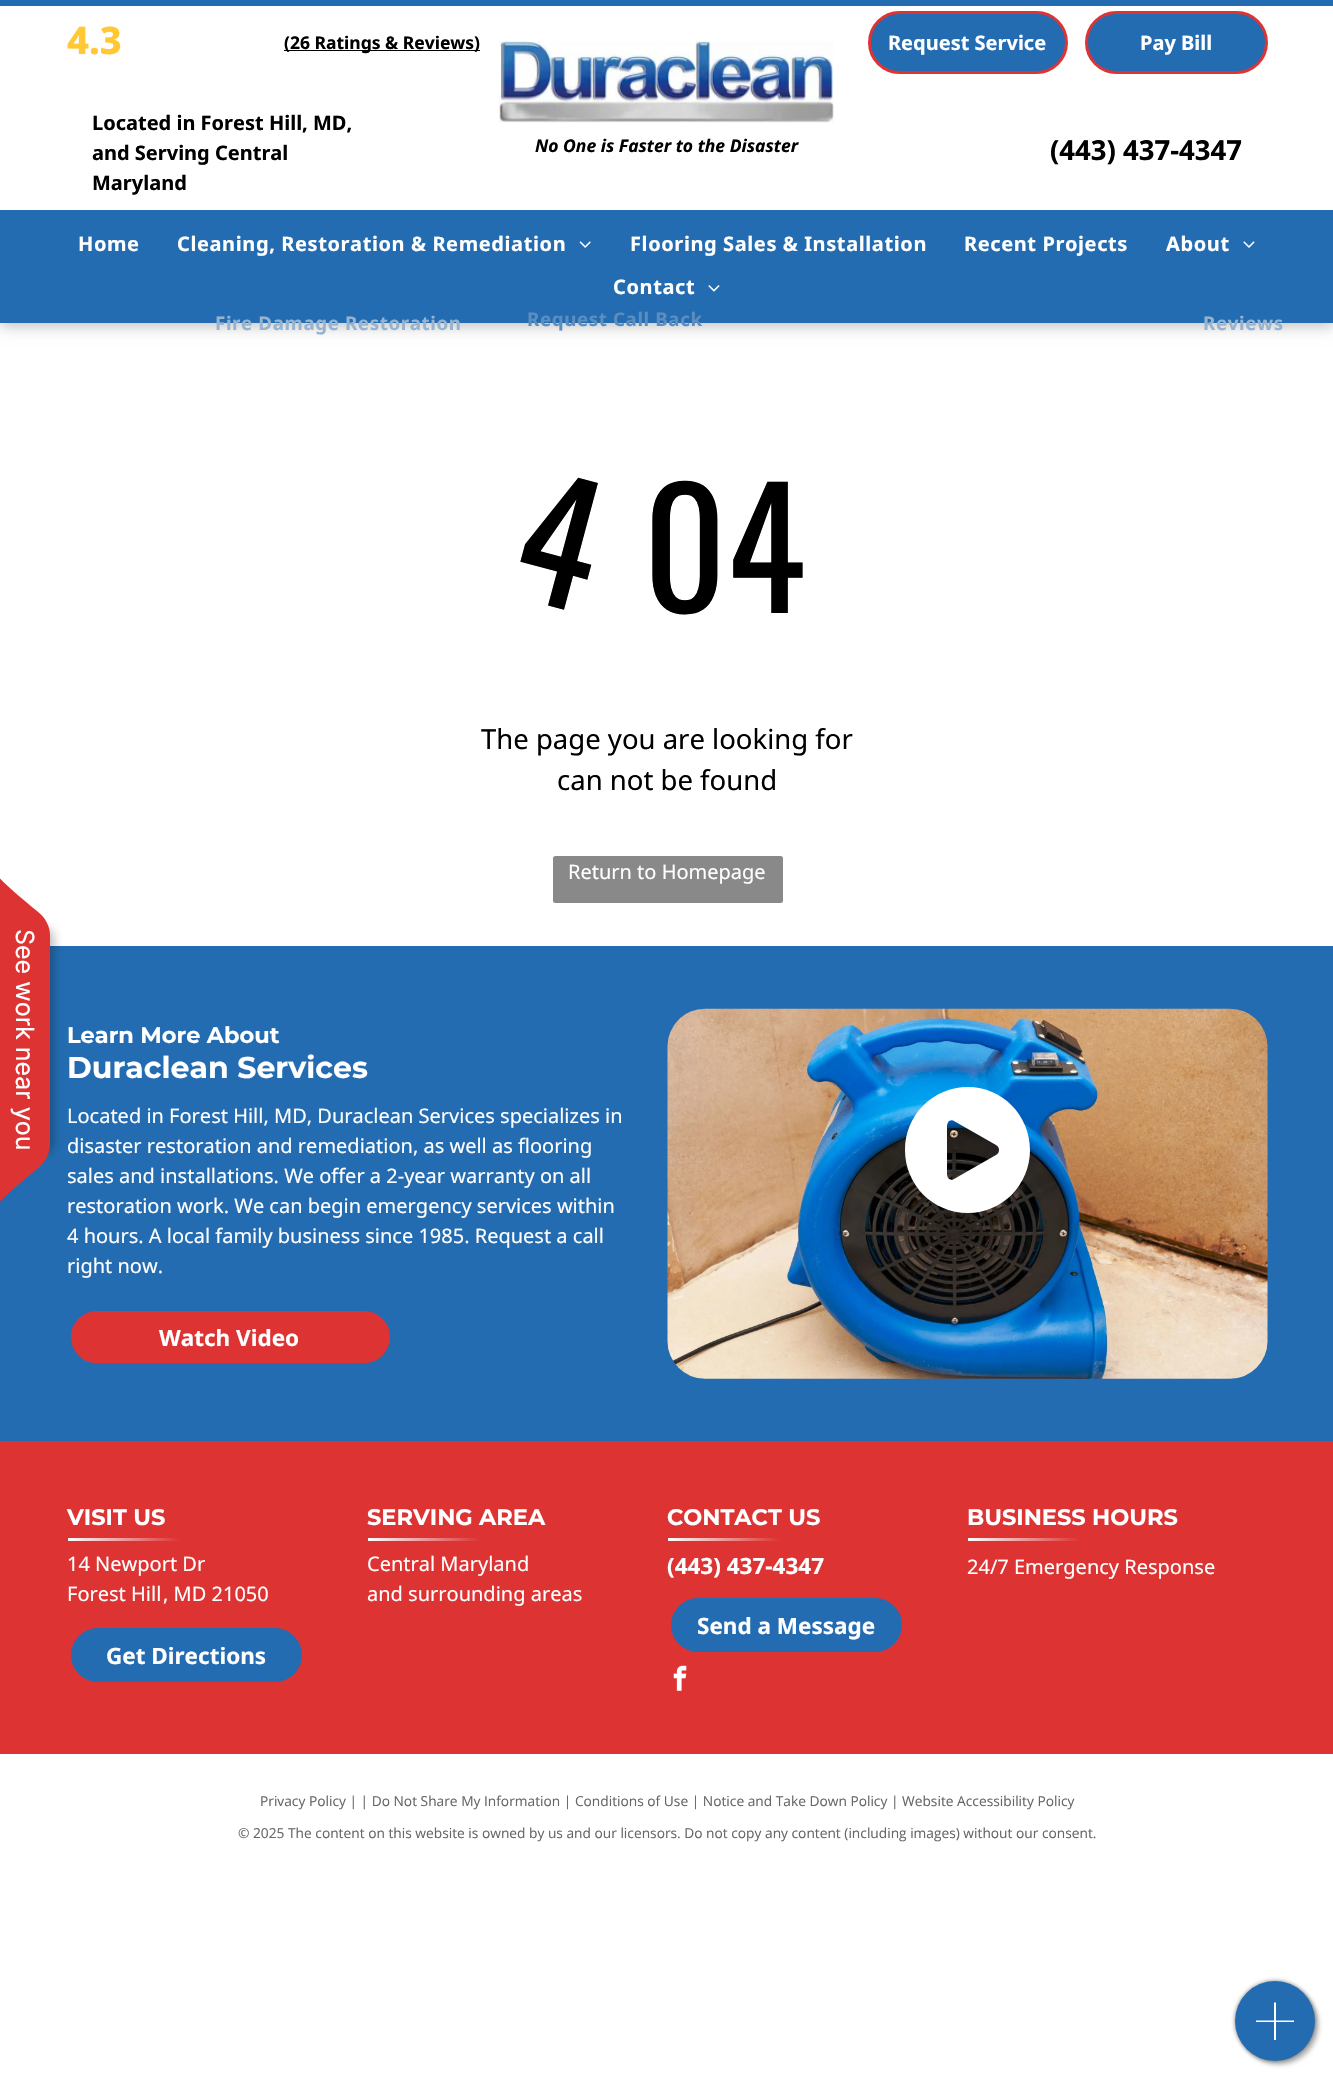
void draw(SkCanvas* canvas) {
    SkPaint paint;
    paint.setAntiAlias(true);
    auto face = [&](const char* family, int weight, float size, bool italic = false) {
        SkFontStyle style(weight, SkFontStyle::kNormal_Width,
            italic ? SkFontStyle::kItalic_Slant : SkFontStyle::kUpright_Slant);
        SkFont result(fontMgr->matchFamilyStyle(family, style), size);
        result.setSubpixel(true);
        return result;
    };
    auto write = [&](const char* s, float x, float y, const SkFont& font, SkColor color) {
        SkPaint ink(SkColor4f::FromColor(color));
        ink.setAntiAlias(true);
        canvas->drawString(s, x, y, font, ink);
    };
    auto writeSpaced = [&](const char* s, float x, float y, const SkFont& font, const SkPaint& ink, float letter, float word) {
        std::vector<SkGlyphID> glyphs(font.countText(s, strlen(s), SkTextEncoding::kUTF8));
        std::vector<float> xs(glyphs.size());
        font.textToGlyphs(s, strlen(s), SkTextEncoding::kUTF8, glyphs);
        font.getXPos(glyphs, xs, x);
        float extra = 0;
        for (size_t i = 0; i < glyphs.size(); i++) {
            xs[i] += extra;
            extra += letter + word * (glyphs[i] == font.unicharToGlyph(' '));
        }
        canvas->drawTextBlob(SkTextBlob::MakeFromPosHGlyphs(glyphs, xs, y, font), 0, 0, ink);
    };
    auto block = [&](float x, float y, float w, float h, SkColor color) {
        SkPaint ink(SkColor4f::FromColor(color));
        ink.setAntiAlias(true);
        canvas->drawRect(SkRect::MakeXYWH(x, y, w, h), ink);
    };
    auto card = [&](float x, float y, float w, float h, float radius, SkColor color) {
        SkPaint ink(SkColor4f::FromColor(color));
        ink.setAntiAlias(true);
        canvas->drawRoundRect(SkRect::MakeXYWH(x, y, w, h), radius, radius, ink);
    };
    auto paste = [&](const char* path, float x, float y, float w, float h) {
        auto image = SkImages::DeferredFromEncodedData(SkData::MakeFromFileName(path));
        canvas->drawImageRect(image, SkRect::MakeXYWH(x, y, w, h), SkSamplingOptions());
    };
    canvas->clear(SK_ColorWHITE);
    block(0, 946, 1333, 495, SkColorSetRGB(35, 108, 177));
    paint.setColor(SkColorSetARGB(64, 0, 0, 0));
    paint.setMaskFilter(SkMaskFilter::MakeBlur(kNormal_SkBlurStyle, 5));
    canvas->drawRoundRect(SkRect::MakeXYWH(4, 928, 50, 225), 10, 10, paint);
    paint.setMaskFilter(nullptr);
    paint.setColor(SkColorSetRGB(221, 51, 51));
    canvas->drawPath(SkPathBuilder().moveTo(0, 928).lineTo(40, 928).cubicTo(45.5f, 928, 50, 932.5f, 50, 938).lineTo(50, 1143).cubicTo(50, 1148.5f, 45.5f, 1153, 40, 1153).lineTo(0, 1153).close().detach(), paint);
    canvas->drawPath(SkPathBuilder().moveTo(50, 940).lineTo(-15, 940).cubicTo(-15, 940, -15, 836, -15, 855).cubicTo(-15, 869, 19, 896, 37, 911).cubicTo(45, 917, 50, 926, 50, 935).close().detach(), paint);
    canvas->drawPath(SkPathBuilder().moveTo(50, 1140).lineTo(-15, 1140).cubicTo(-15, 1140, -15, 1244, -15, 1225).cubicTo(-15, 1211, 19, 1184, 37, 1169).cubicTo(45, 1163, 50, 1154, 50, 1144).close().detach(), paint);
    auto kFont1 = face("Inter", 400, 25);
    canvas->save();
    canvas->rotate(90, 16, 929);
    write("See work near you", 16, 929, kFont1, SK_ColorWHITE);
    canvas->restore();
    paint.setColor(SkColorSetARGB(64, 0, 0, 0));
    paint.setMaskFilter(SkMaskFilter::MakeBlur(kNormal_SkBlurStyle, 7));
    canvas->drawRect(SkRect::MakeXYWH(0, 4, 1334, 322), paint);
    paint.setMaskFilter(nullptr);
    block(0, 6, 1333, 204, SK_ColorWHITE);
    block(0, 0, 1333, 6, SkColorSetRGB(35, 108, 177));
    auto kFont2 = face("Noto Sans", 800, 38);
    write("4.3", 67, 54, kFont2, SkColorSetRGB(255, 200, 52));
    block(284, 50, 196, 1, SK_ColorBLACK);
    auto kFont3 = face("Noto Sans", 700, 17.5f);
    write("(26 Ratings & Reviews)", 284, 49, kFont3, SK_ColorBLACK);
    paint.setColor(SkColorSetRGB(35, 108, 177));
    canvas->drawRoundRect(SkRect::MakeXYWH(869.5f, 12.5f, 197, 60), 30, 30, paint);
    paint.setStyle(SkPaint::kStroke_Style);
    paint.setStrokeWidth(3);
    paint.setColor(SkColorSetRGB(221, 51, 51));
    canvas->drawRoundRect(SkRect::MakeXYWH(869.5f, 12.5f, 197, 60), 30, 30, paint);
    auto kFont4 = face("Noto Sans", 700, 20);
    write("Request Service", 888, 50, kFont4, SK_ColorWHITE);
    paint.setStyle(SkPaint::kFill_Style);
    paint.setColor(SkColorSetRGB(35, 108, 177));
    canvas->drawRoundRect(SkRect::MakeXYWH(1086.5f, 12.5f, 180, 60), 30, 30, paint);
    paint.setStyle(SkPaint::kStroke_Style);
    paint.setColor(SkColorSetRGB(221, 51, 51));
    canvas->drawRoundRect(SkRect::MakeXYWH(1086.5f, 12.5f, 180, 60), 30, 30, paint);
    write("Pay Bill", 1140, 50, kFont4, SK_ColorWHITE);
    write("Located in Forest Hill, MD,", 92, 130, kFont4, SK_ColorBLACK);
    write("and Serving Central", 92, 160, kFont4, SK_ColorBLACK);
    write("Maryland", 92, 190, kFont4, SK_ColorBLACK);
    paste("pic1.png", 499, 41, 335, 82);
    auto kFont5 = face("Noto Sans", 700, 17.5f, true);
    write("No One is Faster to the Disaster", 535, 152, kFont5, SK_ColorBLACK);
    auto kFont6 = face("Noto Sans", 700, 27.5f);
    write("(443) 437-4347", 1050, 160, kFont6, SK_ColorBLACK);
    block(0, 210, 1333, 113, SkColorSetRGB(35, 108, 177));
    paint.setStyle(SkPaint::kFill_Style);
    paint.setColor(SK_ColorWHITE);
    writeSpaced("Home", 78, 251, kFont4, paint, 0.6f, 0);
    writeSpaced("Cleaning, Restoration & Remediation", 177, 251, kFont4, paint, 0.6f, 0);
    paste("pic2.png", 579, 241, 12, 7);
    auto kFont7 = face("Noto Sans", 700, 18.75f);
    paint.setColor(SkColorSetRGB(150, 179, 207));
    writeSpaced("Fire Damage Restoration", 215, 330, kFont7, paint, 0.6f, 0);
    paint.setColor(SK_ColorWHITE);
    writeSpaced("Flooring Sales & Installation", 630, 251, kFont4, paint, 0.6f, 0);
    writeSpaced("Recent Projects", 964, 251, kFont4, paint, 0.6f, 0);
    writeSpaced("About", 1166, 251, kFont4, paint, 0.6f, 0);
    paste("pic3.png", 1243, 241, 12, 7);
    paint.setColor(SkColorSetRGB(150, 179, 207));
    writeSpaced("Reviews", 1203, 330, kFont7, paint, 0.6f, 0);
    paint.setColor(SK_ColorWHITE);
    writeSpaced("Contact", 613, 294, kFont4, paint, 0.6f, 0);
    paste("pic4.png", 708, 285, 12, 7);
    paint.setColor(SkColorSetRGB(91, 142, 190));
    writeSpaced("Request Call Back", 527, 326, kFont7, paint, 0.6f, 0);
    auto kFont8 = face("Oswald", 400, 162);
    canvas->save();
    canvas->rotate(15, 505, 594);
    write("4", 505, 594, kFont8, SK_ColorBLACK);
    canvas->restore();
    write("04", 643, 613, kFont8, SK_ColorBLACK);
    auto kFont9 = face("Noto Sans", 400, 27.5f);
    write("The page you are looking for", 481, 749, kFont9, SK_ColorBLACK);
    write("can not be found", 557, 790, kFont9, SK_ColorBLACK);
    card(553, 856, 230, 47, 2.5f, SkColorSetRGB(137, 137, 137));
    auto kFont10 = face("Noto Sans", 400, 20);
    write("Return to Homepage", 568, 879, kFont10, SK_ColorWHITE);
    auto kFont11 = face("Montserrat", 700, 22.5f);
    write("Learn More About", 67, 1043, kFont11, SK_ColorWHITE);
    auto kFont12 = face("Montserrat", 700, 30);
    write("Duraclean Services", 67, 1078, kFont12, SK_ColorWHITE);
    write("Located in Forest Hill, MD, Duraclean Services specializes in", 67, 1123, kFont10, SK_ColorWHITE);
    write("disaster restoration and remediation, as well as flooring", 67, 1153, kFont10, SK_ColorWHITE);
    write("sales and installations. We offer a 2-year warranty on all", 67, 1183, kFont10, SK_ColorWHITE);
    write("restoration work. We can begin emergency services within", 67, 1213, kFont10, SK_ColorWHITE);
    write("4 hours. A local family business since 1985. Request a call", 67, 1243, kFont10, SK_ColorWHITE);
    write("right now.", 67, 1273, kFont10, SK_ColorWHITE);
    paint.setColor(SkColorSetRGB(221, 51, 51));
    canvas->drawRoundRect(SkRect::MakeXYWH(69.5f, 1309.5f, 322, 55), 27.5f, 27.5f, paint);
    paint.setStyle(SkPaint::kStroke_Style);
    paint.setColor(SkColorSetRGB(35, 108, 177));
    canvas->drawRoundRect(SkRect::MakeXYWH(69.5f, 1309.5f, 322, 55), 27.5f, 27.5f, paint);
    auto kFont13 = face("Noto Sans", 700, 22.5f);
    write("Watch Video", 159, 1346, kFont13, SK_ColorWHITE);
    paste("pic5.png", 667, 1008, 601, 371);
    paint.setStyle(SkPaint::kFill_Style);
    paint.setColor(SK_ColorWHITE);
    canvas->drawPath(SkPathBuilder().moveTo(968, 1087).cubicTo(933, 1087, 905, 1115, 905, 1150).cubicTo(905, 1185, 933, 1213, 968, 1213).cubicTo(1002, 1213, 1030, 1185, 1030, 1150).cubicTo(1030, 1115, 1002, 1087, 968, 1087).close().moveTo(996, 1155).lineTo(954, 1179).lineTo(952, 1180).lineTo(949, 1179).cubicTo(948, 1178, 947, 1176, 947, 1174).lineTo(947, 1126).cubicTo(947, 1124, 948, 1122, 949, 1121).cubicTo(951, 1120, 953, 1120, 954, 1121).lineTo(996, 1145).cubicTo(998, 1146, 999, 1148, 999, 1150).cubicTo(999, 1152, 998, 1154, 996, 1155).close().detach(), paint);
    block(0, 1441, 1333, 313, SkColorSetRGB(221, 51, 51));
    write("VISIT US", 67, 1525, kFont11, SK_ColorWHITE);
    {
        const SkColor colors[] = {SK_ColorWHITE, SkColorSetRGB(221, 51, 51)};
        const float stops[] = {0, 1};
        const SkPoint ends[] = {{68, 1539}, {180, 1539}};
        paint.setShader(SkGradientShader::MakeLinear(ends, colors, stops, 2, SkTileMode::kClamp));
        paint.setAlpha(255);
    }
    canvas->drawRect(SkRect::MakeXYWH(68, 1538, 112, 3), paint);
    write("14 Newport Dr", 67, 1571, kFont10, SK_ColorWHITE);
    write("Forest Hill", 67, 1601, kFont10, SK_ColorWHITE);
    write(", MD 21050", 163, 1601, kFont10, SK_ColorWHITE);
    paint.setShader(nullptr);
    paint.setColor(SkColorSetRGB(35, 108, 177));
    canvas->drawRoundRect(SkRect::MakeXYWH(69.5f, 1626.5f, 234, 57), 28.5f, 28.5f, paint);
    paint.setStyle(SkPaint::kStroke_Style);
    paint.setColor(SkColorSetRGB(221, 51, 51));
    canvas->drawRoundRect(SkRect::MakeXYWH(69.5f, 1626.5f, 234, 57), 28.5f, 28.5f, paint);
    write("Get Directions", 106, 1664, kFont13, SK_ColorWHITE);
    write("SERVING AREA", 367, 1525, kFont11, SK_ColorWHITE);
    paint.setStyle(SkPaint::kFill_Style);
    {
        const SkColor colors[] = {SK_ColorWHITE, SkColorSetRGB(221, 51, 51)};
        const float stops[] = {0, 1};
        const SkPoint ends[] = {{368, 1539}, {480, 1539}};
        paint.setShader(SkGradientShader::MakeLinear(ends, colors, stops, 2, SkTileMode::kClamp));
        paint.setAlpha(255);
    }
    canvas->drawRect(SkRect::MakeXYWH(368, 1538, 112, 3), paint);
    write("Central Maryland", 367, 1571, kFont10, SK_ColorWHITE);
    write("and surrounding areas", 367, 1601, kFont10, SK_ColorWHITE);
    write("CONTACT US", 667, 1525, kFont11, SK_ColorWHITE);
    {
        const SkColor colors[] = {SK_ColorWHITE, SkColorSetRGB(221, 51, 51)};
        const float stops[] = {0, 1};
        const SkPoint ends[] = {{668, 1539}, {780, 1539}};
        paint.setShader(SkGradientShader::MakeLinear(ends, colors, stops, 2, SkTileMode::kClamp));
        paint.setAlpha(255);
    }
    canvas->drawRect(SkRect::MakeXYWH(668, 1538, 112, 3), paint);
    write("(443) 437-4347", 667, 1574, kFont13, SK_ColorWHITE);
    paint.setShader(nullptr);
    paint.setColor(SkColorSetRGB(35, 108, 177));
    canvas->drawRoundRect(SkRect::MakeXYWH(669.5f, 1596.5f, 234, 57), 28.5f, 28.5f, paint);
    paint.setStyle(SkPaint::kStroke_Style);
    paint.setColor(SkColorSetRGB(221, 51, 51));
    canvas->drawRoundRect(SkRect::MakeXYWH(669.5f, 1596.5f, 234, 57), 28.5f, 28.5f, paint);
    write("Send a Message", 697, 1634, kFont13, SK_ColorWHITE);
    paste("pic6.png", 673, 1665, 14, 26);
    write("BUSINESS HOURS", 967, 1525, kFont11, SK_ColorWHITE);
    paint.setStyle(SkPaint::kFill_Style);
    {
        const SkColor colors[] = {SK_ColorWHITE, SkColorSetRGB(221, 51, 51)};
        const float stops[] = {0, 1};
        const SkPoint ends[] = {{968, 1539}, {1080, 1539}};
        paint.setShader(SkGradientShader::MakeLinear(ends, colors, stops, 2, SkTileMode::kClamp));
        paint.setAlpha(255);
    }
    canvas->drawRect(SkRect::MakeXYWH(968, 1538, 112, 3), paint);
    write("24/7 Emergency Response", 967, 1574, kFont10, SK_ColorWHITE);
    paint.setShader(nullptr);
    paint.setColor(SkColorSetARGB(64, 0, 0, 0));
    paint.setMaskFilter(SkMaskFilter::MakeBlur(kNormal_SkBlurStyle, 2));
    canvas->drawRoundRect(SkRect::MakeXYWH(1239, 1985, 80, 80), 40, 40, paint);
    paint.setMaskFilter(nullptr);
    paint.setColor(SkColorSetARGB(128, 0, 0, 0));
    paint.setMaskFilter(SkMaskFilter::MakeBlur(kNormal_SkBlurStyle, 2));
    canvas->drawRoundRect(SkRect::MakeXYWH(1235, 1981, 80, 80), 40, 40, paint);
    paint.setMaskFilter(nullptr);
    paint.setColor(SkColorSetRGB(35, 108, 177));
    canvas->drawCircle(1275, 2021, 40, paint);
    paint.setColor(SK_ColorWHITE);
    canvas->drawPath(SkPathBuilder().moveTo(1294, 2020.5f).lineTo(1276, 2020.5f).lineTo(1276, 2002.5f).lineTo(1274, 2002.5f).lineTo(1274, 2020.5f).lineTo(1256, 2020.5f).lineTo(1256, 2022).lineTo(1274, 2022).lineTo(1274, 2040).lineTo(1276, 2040).lineTo(1276, 2022).lineTo(1294, 2022).close().detach(), paint);
    auto kFont14 = face("Open Sans", 400, 13.75f);
    write("Privacy Policy | | Do Not Share My Information | Conditions of Use | Notice and Take Down Policy | Website Accessibility Policy", 260, 1806, kFont14, SkColorSetRGB(102, 102, 102));
    write("© 2025 The content on this website is owned by us and our licensors. Do not copy any content (including images) without our consent.", 238, 1838, kFont14, SkColorSetRGB(102, 102, 102));
}
